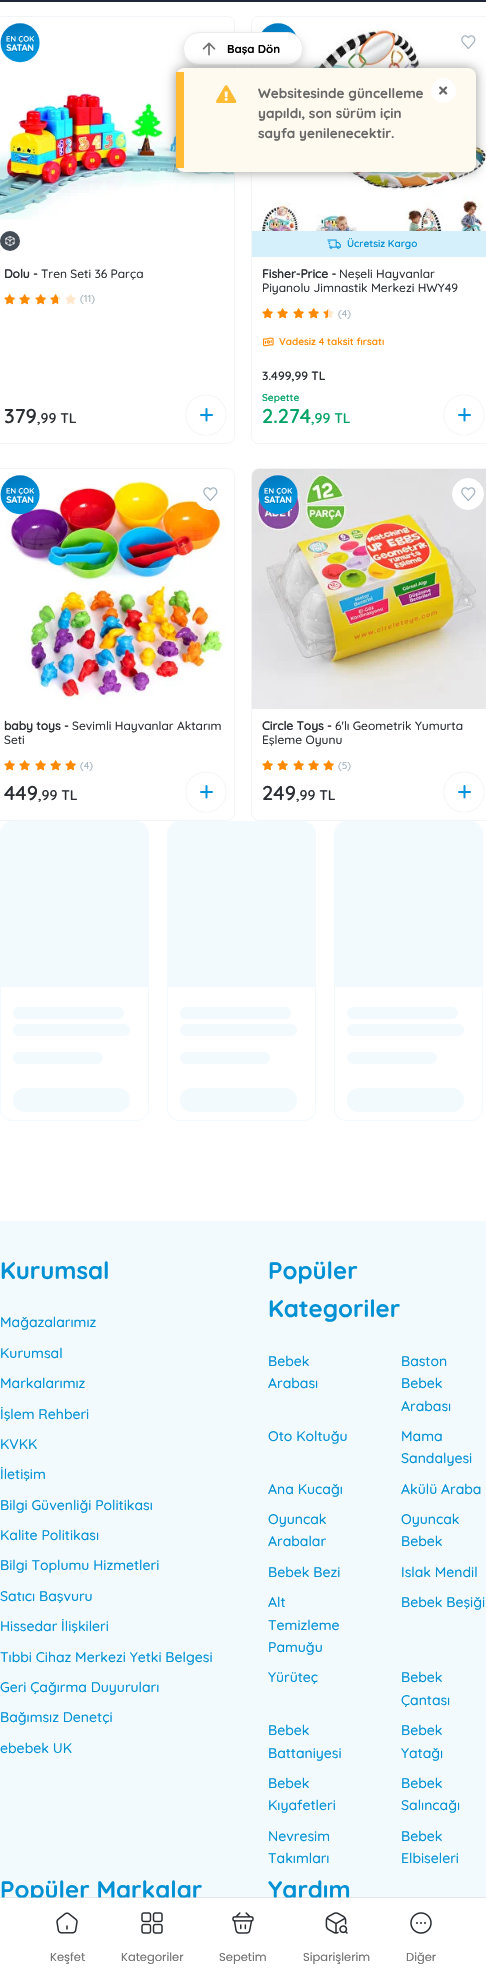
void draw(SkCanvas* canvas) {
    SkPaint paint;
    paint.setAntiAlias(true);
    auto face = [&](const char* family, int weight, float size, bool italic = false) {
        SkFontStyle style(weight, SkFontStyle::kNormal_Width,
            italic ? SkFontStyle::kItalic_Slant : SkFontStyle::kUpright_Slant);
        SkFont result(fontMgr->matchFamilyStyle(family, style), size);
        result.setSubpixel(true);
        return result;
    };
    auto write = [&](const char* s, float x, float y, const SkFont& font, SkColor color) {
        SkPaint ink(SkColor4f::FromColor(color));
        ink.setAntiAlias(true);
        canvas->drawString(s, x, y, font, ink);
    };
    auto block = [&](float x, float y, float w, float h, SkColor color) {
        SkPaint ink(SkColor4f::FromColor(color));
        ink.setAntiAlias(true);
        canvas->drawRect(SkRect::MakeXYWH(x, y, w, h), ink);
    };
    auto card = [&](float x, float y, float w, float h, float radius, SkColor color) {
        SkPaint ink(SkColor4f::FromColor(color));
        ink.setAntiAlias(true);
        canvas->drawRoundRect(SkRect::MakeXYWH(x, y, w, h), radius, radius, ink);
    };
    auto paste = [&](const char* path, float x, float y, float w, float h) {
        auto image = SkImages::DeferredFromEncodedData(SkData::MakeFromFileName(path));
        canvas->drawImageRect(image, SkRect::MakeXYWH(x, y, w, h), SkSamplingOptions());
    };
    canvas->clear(SK_ColorWHITE);
    paint.setStyle(SkPaint::kStroke_Style);
    paint.setStrokeWidth(1);
    paint.setColor(SkColorSetRGB(242, 245, 247));
    canvas->drawRoundRect(SkRect::MakeXYWH(-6.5f, 16.5f, 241, 427), 7.5f, 7.5f, paint);
    paint.setStyle(SkPaint::kFill_Style);
    paint.setColor(SK_ColorWHITE);
    canvas->drawPath(SkPathBuilder().moveTo(1, 17).lineTo(227, 17).cubicTo(231, 17, 234, 20, 234, 24).lineTo(234, 257).lineTo(-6, 257).lineTo(-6, 24).cubicTo(-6, 20, -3, 17, 1, 17).close().detach(), paint);
    paint.setStyle(SkPaint::kStroke_Style);
    paint.setColor(SkColorSetRGB(242, 245, 247));
    canvas->drawRoundRect(SkRect::MakeXYWH(251.5f, 16.5f, 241, 427), 7.5f, 7.5f, paint);
    paint.setStyle(SkPaint::kFill_Style);
    paint.setColor(SK_ColorWHITE);
    canvas->drawPath(SkPathBuilder().moveTo(259, 17).lineTo(485, 17).cubicTo(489, 17, 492, 20, 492, 24).lineTo(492, 257).lineTo(252, 257).lineTo(252, 24).cubicTo(252, 20, 255, 17, 259, 17).close().detach(), paint);
    paste("pic12.png", 258, 29, 228, 202);
    paste("pic11.png", 262, 23, 35, 13);
    paint.setColor(SkColorSetARGB(41, 0, 0, 0));
    paint.setMaskFilter(SkMaskFilter::MakeBlur(kNormal_SkBlurStyle, 4));
    canvas->drawRoundRect(SkRect::MakeXYWH(183, 36, 120, 33), 16, 16, paint);
    paint.setMaskFilter(nullptr);
    card(183, 32, 120, 33, 16, SK_ColorWHITE);
    paste("pic1.png", 202, 42, 14, 14);
    paint.setStyle(SkPaint::kStroke_Style);
    paint.setColor(SkColorSetARGB(20, 0, 0, 0));
    canvas->drawRoundRect(SkRect::MakeXYWH(183.5f, 32.5f, 119, 32), 15.5f, 15.5f, paint);
    auto kFont1 = face("Quicksand", 700, 11.5f);
    write("Başa Dön", 227, 53, kFont1, SK_ColorBLACK);
    block(0, 0, 486, 2, SkColorSetRGB(33, 39, 56));
    paste("pic5.png", 0, 93, 234, 127);
    paint.setStyle(SkPaint::kFill_Style);
    paint.setColor(SkColorSetRGB(153, 153, 153));
    paint.setMaskFilter(SkMaskFilter::MakeBlur(kNormal_SkBlurStyle, 6));
    canvas->drawRoundRect(SkRect::MakeXYWH(176, 68, 300, 104), 8, 8, paint);
    paint.setMaskFilter(nullptr);
    card(176, 68, 300, 104, 8, SkColorSetRGB(255, 250, 239));
    block(176, 72, 8, 96, SkColorSetRGB(255, 187, 51));
    paste("pic2.png", 216, 85, 21, 18);
    auto kFont2 = face("Quicksand", 700, 13.5f);
    write("Websitesinde güncelleme", 258, 98, kFont2, SkColorSetRGB(104, 104, 104));
    write("yapıldı, son sürüm için", 258, 118, kFont2, SkColorSetRGB(104, 104, 104));
    write("sayfa yenilenecektir.", 258, 138, kFont2, SkColorSetRGB(104, 104, 104));
    paint.setColor(SK_ColorWHITE);
    canvas->drawCircle(443.5f, 90.5f, 12.5f, paint);
    paste("pic3.png", 439, 86, 9, 9);
    paste("pic4.png", 0, 23, 40, 40);
    paint.setColor(SkColorSetRGB(68, 76, 86));
    canvas->drawCircle(10, 241, 10, paint);
    paste("pic6.png", 5, 236, 10, 10);
    auto kFont3 = face("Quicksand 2", 700, 12);
    write("Dolu -", 4, 278, kFont3, SkColorSetRGB(43, 47, 51));
    auto kFont4 = face("Quicksand", 500, 12);
    write("Tren Seti 36 Parça", 41, 278, kFont4, SkColorSetRGB(43, 47, 51));
    paste("pic7.png", 4, 294, 11, 11);
    paste("pic7.png", 19, 294, 11, 11);
    paste("pic7.png", 35, 294, 11, 11);
    paste("pic8.png", 50, 294, 11, 11);
    paste("pic9.png", 65, 294, 11, 11);
    auto kFont5 = face("Quicksand", 500, 10);
    write("(11)", 80, 302, kFont5, SkColorSetRGB(162, 177, 188));
    auto kFont6 = face("Quicksand", 600, 20);
    write("379", 4, 423, kFont6, SkColorSetRGB(43, 47, 51));
    auto kFont7 = face("Quicksand", 600, 14);
    write(",99 TL", 37, 423, kFont7, SkColorSetRGB(43, 47, 51));
    paint.setColor(SkColorSetARGB(71, 176, 176, 176));
    paint.setMaskFilter(SkMaskFilter::MakeBlur(kNormal_SkBlurStyle, 0.5f));
    canvas->drawRoundRect(SkRect::MakeXYWH(186, 395, 40, 40), 20, 20, paint);
    paint.setMaskFilter(nullptr);
    paint.setColor(SkColorSetARGB(61, 176, 176, 176));
    paint.setMaskFilter(SkMaskFilter::MakeBlur(kNormal_SkBlurStyle, 0.5f));
    canvas->drawRoundRect(SkRect::MakeXYWH(186, 395, 40, 40), 20, 20, paint);
    paint.setMaskFilter(nullptr);
    paint.setColor(SK_ColorWHITE);
    canvas->drawCircle(206, 415, 20, paint);
    paint.setStyle(SkPaint::kStroke_Style);
    paint.setStrokeWidth(2);
    paint.setStrokeCap(SkPaint::kRound_Cap);
    paint.setStrokeJoin(SkPaint::kRound_Join);
    paint.setColor(SkColorSetRGB(0, 146, 219));
    canvas->drawPath(SkPathBuilder().moveTo(206.5f, 420.5f).lineTo(206.5f, 409).moveTo(212, 415).lineTo(201, 415).detach(), paint);
    paste("pic10.png", 461, 35, 15, 14);
    block(252, 231, 234, 26, SkColorSetRGB(213, 239, 251));
    paste("pic13.png", 327, 239, 14, 10);
    auto kFont8 = face("Quicksand", 600, 10);
    write("Ücretsiz Kargo", 347, 247, kFont8, SkColorSetRGB(0, 145, 213));
    write("Fisher-Price -", 262, 278, kFont3, SkColorSetRGB(43, 47, 51));
    write("Neşeli Hayvanlar", 339, 278, kFont4, SkColorSetRGB(43, 47, 51));
    write("Piyanolu Jimnastik Merkezi HWY49", 262, 292, kFont4, SkColorSetRGB(43, 47, 51));
    paste("pic7.png", 262, 308, 11, 11);
    paste("pic7.png", 277, 308, 11, 11);
    paste("pic7.png", 293, 308, 11, 11);
    paste("pic7.png", 308, 308, 11, 11);
    paste("pic14.png", 323, 308, 11, 11);
    write("(4)", 338, 317, kFont5, SkColorSetRGB(162, 177, 188));
    paste("pic15.png", 263, 337, 11, 10);
    write("Vadesiz 4 taksit fırsatı", 279, 345, kFont8, SkColorSetRGB(255, 138, 0));
    auto kFont9 = face("Quicksand", 600, 12);
    write("3.499,99 TL", 262, 380, kFont9, SkColorSetRGB(43, 47, 51));
    write("Sepette", 262, 401, kFont8, SkColorSetRGB(0, 163, 101));
    write("2.274", 262, 423, kFont6, SkColorSetRGB(0, 163, 101));
    write(",99 TL", 311, 423, kFont7, SkColorSetRGB(0, 163, 101));
    paint.setStyle(SkPaint::kFill_Style);
    paint.setColor(SkColorSetARGB(71, 176, 176, 176));
    paint.setMaskFilter(SkMaskFilter::MakeBlur(kNormal_SkBlurStyle, 0.5f));
    canvas->drawRoundRect(SkRect::MakeXYWH(444, 395, 40, 40), 20, 20, paint);
    paint.setMaskFilter(nullptr);
    paint.setColor(SkColorSetARGB(61, 176, 176, 176));
    paint.setMaskFilter(SkMaskFilter::MakeBlur(kNormal_SkBlurStyle, 0.5f));
    canvas->drawRoundRect(SkRect::MakeXYWH(444, 395, 40, 40), 20, 20, paint);
    paint.setMaskFilter(nullptr);
    paint.setColor(SK_ColorWHITE);
    canvas->drawCircle(464, 415, 20, paint);
    paint.setStyle(SkPaint::kStroke_Style);
    paint.setColor(SkColorSetRGB(0, 146, 219));
    canvas->drawPath(SkPathBuilder().moveTo(464.5f, 420.5f).lineTo(464.5f, 409).moveTo(470, 415).lineTo(459, 415).detach(), paint);
    paint.setStrokeWidth(1);
    paint.setStrokeCap(SkPaint::kButt_Cap);
    paint.setStrokeJoin(SkPaint::kMiter_Join);
    paint.setColor(SkColorSetRGB(242, 245, 247));
    canvas->drawRoundRect(SkRect::MakeXYWH(-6.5f, 468.5f, 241, 352), 7.5f, 7.5f, paint);
    paint.setStyle(SkPaint::kFill_Style);
    paint.setColor(SK_ColorWHITE);
    canvas->drawPath(SkPathBuilder().moveTo(1, 469).lineTo(227, 469).cubicTo(231, 469, 234, 472, 234, 476).lineTo(234, 709).lineTo(-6, 709).lineTo(-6, 476).cubicTo(-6, 472, -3, 469, 1, 469).close().detach(), paint);
    paste("pic17.png", 6, 481, 219, 219);
    canvas->drawCircle(210, 494, 15.5f, paint);
    paint.setStyle(SkPaint::kStroke_Style);
    canvas->drawCircle(210, 494, 15.5f, paint);
    paste("pic10.png", 203, 487, 15, 14);
    paste("pic16.png", 0, 475, 40, 40);
    write("baby toys -", 4, 730, kFont3, SkColorSetRGB(43, 47, 51));
    write("Sevimli Hayvanlar Aktarım", 72, 730, kFont4, SkColorSetRGB(43, 47, 51));
    write("Seti", 4, 744, kFont4, SkColorSetRGB(43, 47, 51));
    paste("pic7.png", 4, 760, 11, 11);
    paste("pic7.png", 19, 760, 11, 11);
    paste("pic7.png", 35, 760, 11, 11);
    paste("pic7.png", 50, 760, 11, 11);
    paste("pic7.png", 65, 760, 11, 11);
    write("(4)", 80, 769, kFont5, SkColorSetRGB(162, 177, 188));
    write("449", 4, 800, kFont6, SkColorSetRGB(43, 47, 51));
    write(",99 TL", 38, 800, kFont7, SkColorSetRGB(43, 47, 51));
    paint.setStyle(SkPaint::kFill_Style);
    paint.setColor(SkColorSetARGB(71, 176, 176, 176));
    paint.setMaskFilter(SkMaskFilter::MakeBlur(kNormal_SkBlurStyle, 0.5f));
    canvas->drawRoundRect(SkRect::MakeXYWH(186, 772, 40, 40), 20, 20, paint);
    paint.setMaskFilter(nullptr);
    paint.setColor(SkColorSetARGB(61, 176, 176, 176));
    paint.setMaskFilter(SkMaskFilter::MakeBlur(kNormal_SkBlurStyle, 0.5f));
    canvas->drawRoundRect(SkRect::MakeXYWH(186, 772, 40, 40), 20, 20, paint);
    paint.setMaskFilter(nullptr);
    paint.setColor(SK_ColorWHITE);
    canvas->drawCircle(206, 792, 20, paint);
    paint.setStyle(SkPaint::kStroke_Style);
    paint.setStrokeWidth(2);
    paint.setStrokeCap(SkPaint::kRound_Cap);
    paint.setStrokeJoin(SkPaint::kRound_Join);
    paint.setColor(SkColorSetRGB(0, 146, 219));
    canvas->drawPath(SkPathBuilder().moveTo(206.5f, 797.5f).lineTo(206.5f, 786).moveTo(212, 792).lineTo(201, 792).detach(), paint);
    paint.setStrokeWidth(1);
    paint.setStrokeCap(SkPaint::kButt_Cap);
    paint.setStrokeJoin(SkPaint::kMiter_Join);
    paint.setColor(SkColorSetRGB(242, 245, 247));
    canvas->drawRoundRect(SkRect::MakeXYWH(251.5f, 468.5f, 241, 352), 7.5f, 7.5f, paint);
    paste("pic18.png", 252, 469, 234, 240);
    paint.setStyle(SkPaint::kFill_Style);
    paint.setColor(SK_ColorWHITE);
    canvas->drawCircle(468, 494, 15.5f, paint);
    paint.setStyle(SkPaint::kStroke_Style);
    canvas->drawCircle(468, 494, 15.5f, paint);
    paste("pic10.png", 461, 487, 15, 14);
    paste("pic19.png", 258, 475, 40, 40);
    write("Circle Toys -", 262, 730, kFont3, SkColorSetRGB(43, 47, 51));
    write("6'lı Geometrik Yumurta", 335, 730, kFont4, SkColorSetRGB(43, 47, 51));
    write("Eşleme Oyunu", 262, 744, kFont4, SkColorSetRGB(43, 47, 51));
    paste("pic7.png", 262, 760, 11, 11);
    paste("pic7.png", 277, 760, 11, 11);
    paste("pic7.png", 293, 760, 11, 11);
    paste("pic7.png", 308, 760, 11, 11);
    paste("pic7.png", 323, 760, 11, 11);
    write("(5)", 338, 769, kFont5, SkColorSetRGB(162, 177, 188));
    write("249", 262, 800, kFont6, SkColorSetRGB(43, 47, 51));
    write(",99 TL", 296, 800, kFont7, SkColorSetRGB(43, 47, 51));
    paint.setStyle(SkPaint::kFill_Style);
    paint.setColor(SkColorSetARGB(71, 176, 176, 176));
    paint.setMaskFilter(SkMaskFilter::MakeBlur(kNormal_SkBlurStyle, 0.5f));
    canvas->drawRoundRect(SkRect::MakeXYWH(444, 772, 40, 40), 20, 20, paint);
    paint.setMaskFilter(nullptr);
    paint.setColor(SkColorSetARGB(61, 176, 176, 176));
    paint.setMaskFilter(SkMaskFilter::MakeBlur(kNormal_SkBlurStyle, 0.5f));
    canvas->drawRoundRect(SkRect::MakeXYWH(444, 772, 40, 40), 20, 20, paint);
    paint.setMaskFilter(nullptr);
    paint.setColor(SK_ColorWHITE);
    canvas->drawCircle(464, 792, 20, paint);
    paint.setStyle(SkPaint::kStroke_Style);
    paint.setStrokeWidth(2);
    paint.setStrokeCap(SkPaint::kRound_Cap);
    paint.setStrokeJoin(SkPaint::kRound_Join);
    paint.setColor(SkColorSetRGB(0, 146, 219));
    canvas->drawPath(SkPathBuilder().moveTo(464.5f, 797.5f).lineTo(464.5f, 786).moveTo(470, 792).lineTo(459, 792).detach(), paint);
    paint.setStrokeWidth(1);
    paint.setStrokeCap(SkPaint::kButt_Cap);
    paint.setStrokeJoin(SkPaint::kMiter_Join);
    paint.setColor(SkColorSetRGB(242, 250, 254));
    canvas->drawRoundRect(SkRect::MakeXYWH(0.5f, 821.5f, 148, 299), 11.5f, 11.5f, paint);
    paint.setStyle(SkPaint::kFill_Style);
    canvas->drawPath(SkPathBuilder().moveTo(13, 822).lineTo(136, 822).cubicTo(142.5f, 822, 148, 827.5f, 148, 834).lineTo(148, 987).lineTo(1, 987).lineTo(1, 834).cubicTo(1, 827.5f, 6.5f, 822, 13, 822).close().detach(), paint);
    card(13, 1007, 111, 12, 6, SkColorSetRGB(242, 250, 254));
    card(13, 1024, 117, 12, 6, SkColorSetRGB(242, 250, 254));
    card(13, 1052, 90, 12, 6, SkColorSetRGB(242, 250, 254));
    card(13, 1088, 117, 24, 12, SkColorSetRGB(242, 250, 254));
    paint.setStyle(SkPaint::kStroke_Style);
    canvas->drawRoundRect(SkRect::MakeXYWH(167.5f, 821.5f, 148, 299), 11.5f, 11.5f, paint);
    paint.setStyle(SkPaint::kFill_Style);
    canvas->drawPath(SkPathBuilder().moveTo(180, 822).lineTo(303, 822).cubicTo(309.5f, 822, 315, 827.5f, 315, 834).lineTo(315, 987).lineTo(168, 987).lineTo(168, 834).cubicTo(168, 827.5f, 173.5f, 822, 180, 822).close().detach(), paint);
    card(180, 1007, 111, 12, 6, SkColorSetRGB(242, 250, 254));
    card(180, 1024, 117, 12, 6, SkColorSetRGB(242, 250, 254));
    card(180, 1052, 90, 12, 6, SkColorSetRGB(242, 250, 254));
    card(180, 1088, 117, 24, 12, SkColorSetRGB(242, 250, 254));
    paint.setStyle(SkPaint::kStroke_Style);
    canvas->drawRoundRect(SkRect::MakeXYWH(334.5f, 821.5f, 148, 299), 11.5f, 11.5f, paint);
    paint.setStyle(SkPaint::kFill_Style);
    canvas->drawPath(SkPathBuilder().moveTo(347, 822).lineTo(470, 822).cubicTo(476.5f, 822, 482, 827.5f, 482, 834).lineTo(482, 987).lineTo(335, 987).lineTo(335, 834).cubicTo(335, 827.5f, 340.5f, 822, 347, 822).close().detach(), paint);
    card(347, 1007, 111, 12, 6, SkColorSetRGB(242, 250, 254));
    card(347, 1024, 117, 12, 6, SkColorSetRGB(242, 250, 254));
    card(347, 1052, 90, 12, 6, SkColorSetRGB(242, 250, 254));
    card(347, 1088, 117, 24, 12, SkColorSetRGB(242, 250, 254));
    block(0, 1221, 486, 677, SkColorSetRGB(242, 250, 254));
    auto kFont10 = face("Quicksand", 700, 24);
    write("Kurumsal", 0, 1279, kFont10, SkColorSetRGB(0, 145, 213));
    auto kFont11 = face("Quicksand", 500, 14);
    write("Mağazalarımız", 0, 1327, kFont11, SkColorSetRGB(0, 145, 213));
    write("Kurumsal", 0, 1358, kFont11, SkColorSetRGB(0, 145, 213));
    write("Markalarımız", 0, 1388, kFont11, SkColorSetRGB(0, 145, 213));
    write("İşlem Rehberi", 0, 1419, kFont11, SkColorSetRGB(0, 145, 213));
    write("KVKK", 0, 1449, kFont11, SkColorSetRGB(0, 145, 213));
    write("İletişim", 0, 1479, kFont11, SkColorSetRGB(0, 145, 213));
    write("Bilgi Güvenliği Politikası", 0, 1510, kFont11, SkColorSetRGB(0, 145, 213));
    write("Kalite Politikası", 0, 1540, kFont11, SkColorSetRGB(0, 145, 213));
    write("Bilgi Toplumu Hizmetleri", 0, 1570, kFont11, SkColorSetRGB(0, 145, 213));
    write("Satıcı Başvuru", 0, 1601, kFont11, SkColorSetRGB(0, 145, 213));
    write("Hissedar İlişkileri", 0, 1631, kFont11, SkColorSetRGB(0, 145, 213));
    write("Tıbbi Cihaz Merkezi Yetki Belgesi", 0, 1662, kFont11, SkColorSetRGB(0, 145, 213));
    write("Geri Çağırma Duyuruları", 0, 1692, kFont11, SkColorSetRGB(0, 145, 213));
    write("Bağımsız Denetçi", 0, 1722, kFont11, SkColorSetRGB(0, 145, 213));
    write("ebebek UK", 0, 1753, kFont11, SkColorSetRGB(0, 145, 213));
    write("Popüler", 268, 1279, kFont10, SkColorSetRGB(0, 145, 213));
    write("Kategoriler", 268, 1317, kFont10, SkColorSetRGB(0, 145, 213));
    write("Bebek", 268, 1366, kFont11, SkColorSetRGB(0, 145, 213));
    write("Arabası", 268, 1388, kFont11, SkColorSetRGB(0, 145, 213));
    write("Baston", 401, 1366, kFont11, SkColorSetRGB(0, 145, 213));
    write("Bebek", 401, 1388, kFont11, SkColorSetRGB(0, 145, 213));
    write("Arabası", 401, 1411, kFont11, SkColorSetRGB(0, 145, 213));
    write("Oto Koltuğu", 268, 1441, kFont11, SkColorSetRGB(0, 145, 213));
    write("Mama", 401, 1441, kFont11, SkColorSetRGB(0, 145, 213));
    write("Sandalyesi", 401, 1463, kFont11, SkColorSetRGB(0, 145, 213));
    write("Ana Kucağı", 268, 1494, kFont11, SkColorSetRGB(0, 145, 213));
    write("Akülü Araba", 401, 1494, kFont11, SkColorSetRGB(0, 145, 213));
    write("Oyuncak", 268, 1524, kFont11, SkColorSetRGB(0, 145, 213));
    write("Arabalar", 268, 1546, kFont11, SkColorSetRGB(0, 145, 213));
    write("Oyuncak", 401, 1524, kFont11, SkColorSetRGB(0, 145, 213));
    write("Bebek", 401, 1546, kFont11, SkColorSetRGB(0, 145, 213));
    write("Bebek Bezi", 268, 1577, kFont11, SkColorSetRGB(0, 145, 213));
    write("Islak Mendil", 401, 1577, kFont11, SkColorSetRGB(0, 145, 213));
    write("Alt", 268, 1607, kFont11, SkColorSetRGB(0, 145, 213));
    write("Temizleme", 268, 1630, kFont11, SkColorSetRGB(0, 145, 213));
    write("Pamuğu", 268, 1652, kFont11, SkColorSetRGB(0, 145, 213));
    write("Bebek Beşiği", 401, 1607, kFont11, SkColorSetRGB(0, 145, 213));
    write("Yürüteç", 268, 1682, kFont11, SkColorSetRGB(0, 145, 213));
    write("Bebek", 401, 1682, kFont11, SkColorSetRGB(0, 145, 213));
    write("Çantası", 401, 1705, kFont11, SkColorSetRGB(0, 145, 213));
    write("Bebek", 268, 1735, kFont11, SkColorSetRGB(0, 145, 213));
    write("Battaniyesi", 268, 1758, kFont11, SkColorSetRGB(0, 145, 213));
    write("Bebek", 401, 1735, kFont11, SkColorSetRGB(0, 145, 213));
    write("Yatağı", 401, 1758, kFont11, SkColorSetRGB(0, 145, 213));
    write("Bebek", 268, 1788, kFont11, SkColorSetRGB(0, 145, 213));
    write("Kıyafetleri", 268, 1810, kFont11, SkColorSetRGB(0, 145, 213));
    write("Bebek", 401, 1788, kFont11, SkColorSetRGB(0, 145, 213));
    write("Salıncağı", 401, 1810, kFont11, SkColorSetRGB(0, 145, 213));
    write("Nevresim", 268, 1841, kFont11, SkColorSetRGB(0, 145, 213));
    write("Takımları", 268, 1863, kFont11, SkColorSetRGB(0, 145, 213));
    write("Bebek", 401, 1841, kFont11, SkColorSetRGB(0, 145, 213));
    write("Elbiseleri", 401, 1863, kFont11, SkColorSetRGB(0, 145, 213));
    write("Popüler Markalar", 0, 1898, kFont10, SkColorSetRGB(0, 145, 213));
    write("Yardım", 268, 1898, kFont10, SkColorSetRGB(0, 145, 213));
    block(0, 1897, 486, 1, SkColorSetARGB(128, 210, 210, 210));
    block(20, 1898, 296, 5, SK_ColorWHITE);
    paste("pic20.png", 56, 1912, 22, 22);
    auto kFont12 = face("Poppins", 400, 11.5f);
    write("Keşfet", 50, 1961, kFont12, SkColorSetRGB(111, 111, 111));
    paste("pic21.png", 141, 1912, 22, 22);
    write("Kategoriler", 121, 1961, kFont12, SkColorSetRGB(111, 111, 111));
    paste("pic22.png", 232, 1912, 22, 22);
    write("Sepetim", 219, 1961, kFont12, SkColorSetRGB(111, 111, 111));
    paste("pic23.png", 325, 1912, 23, 22);
    write("Siparişlerim", 303, 1961, kFont12, SkColorSetRGB(111, 111, 111));
    paste("pic24.png", 410, 1912, 22, 22);
    write("Diğer", 406, 1961, kFont12, SkColorSetRGB(111, 111, 111));
}
